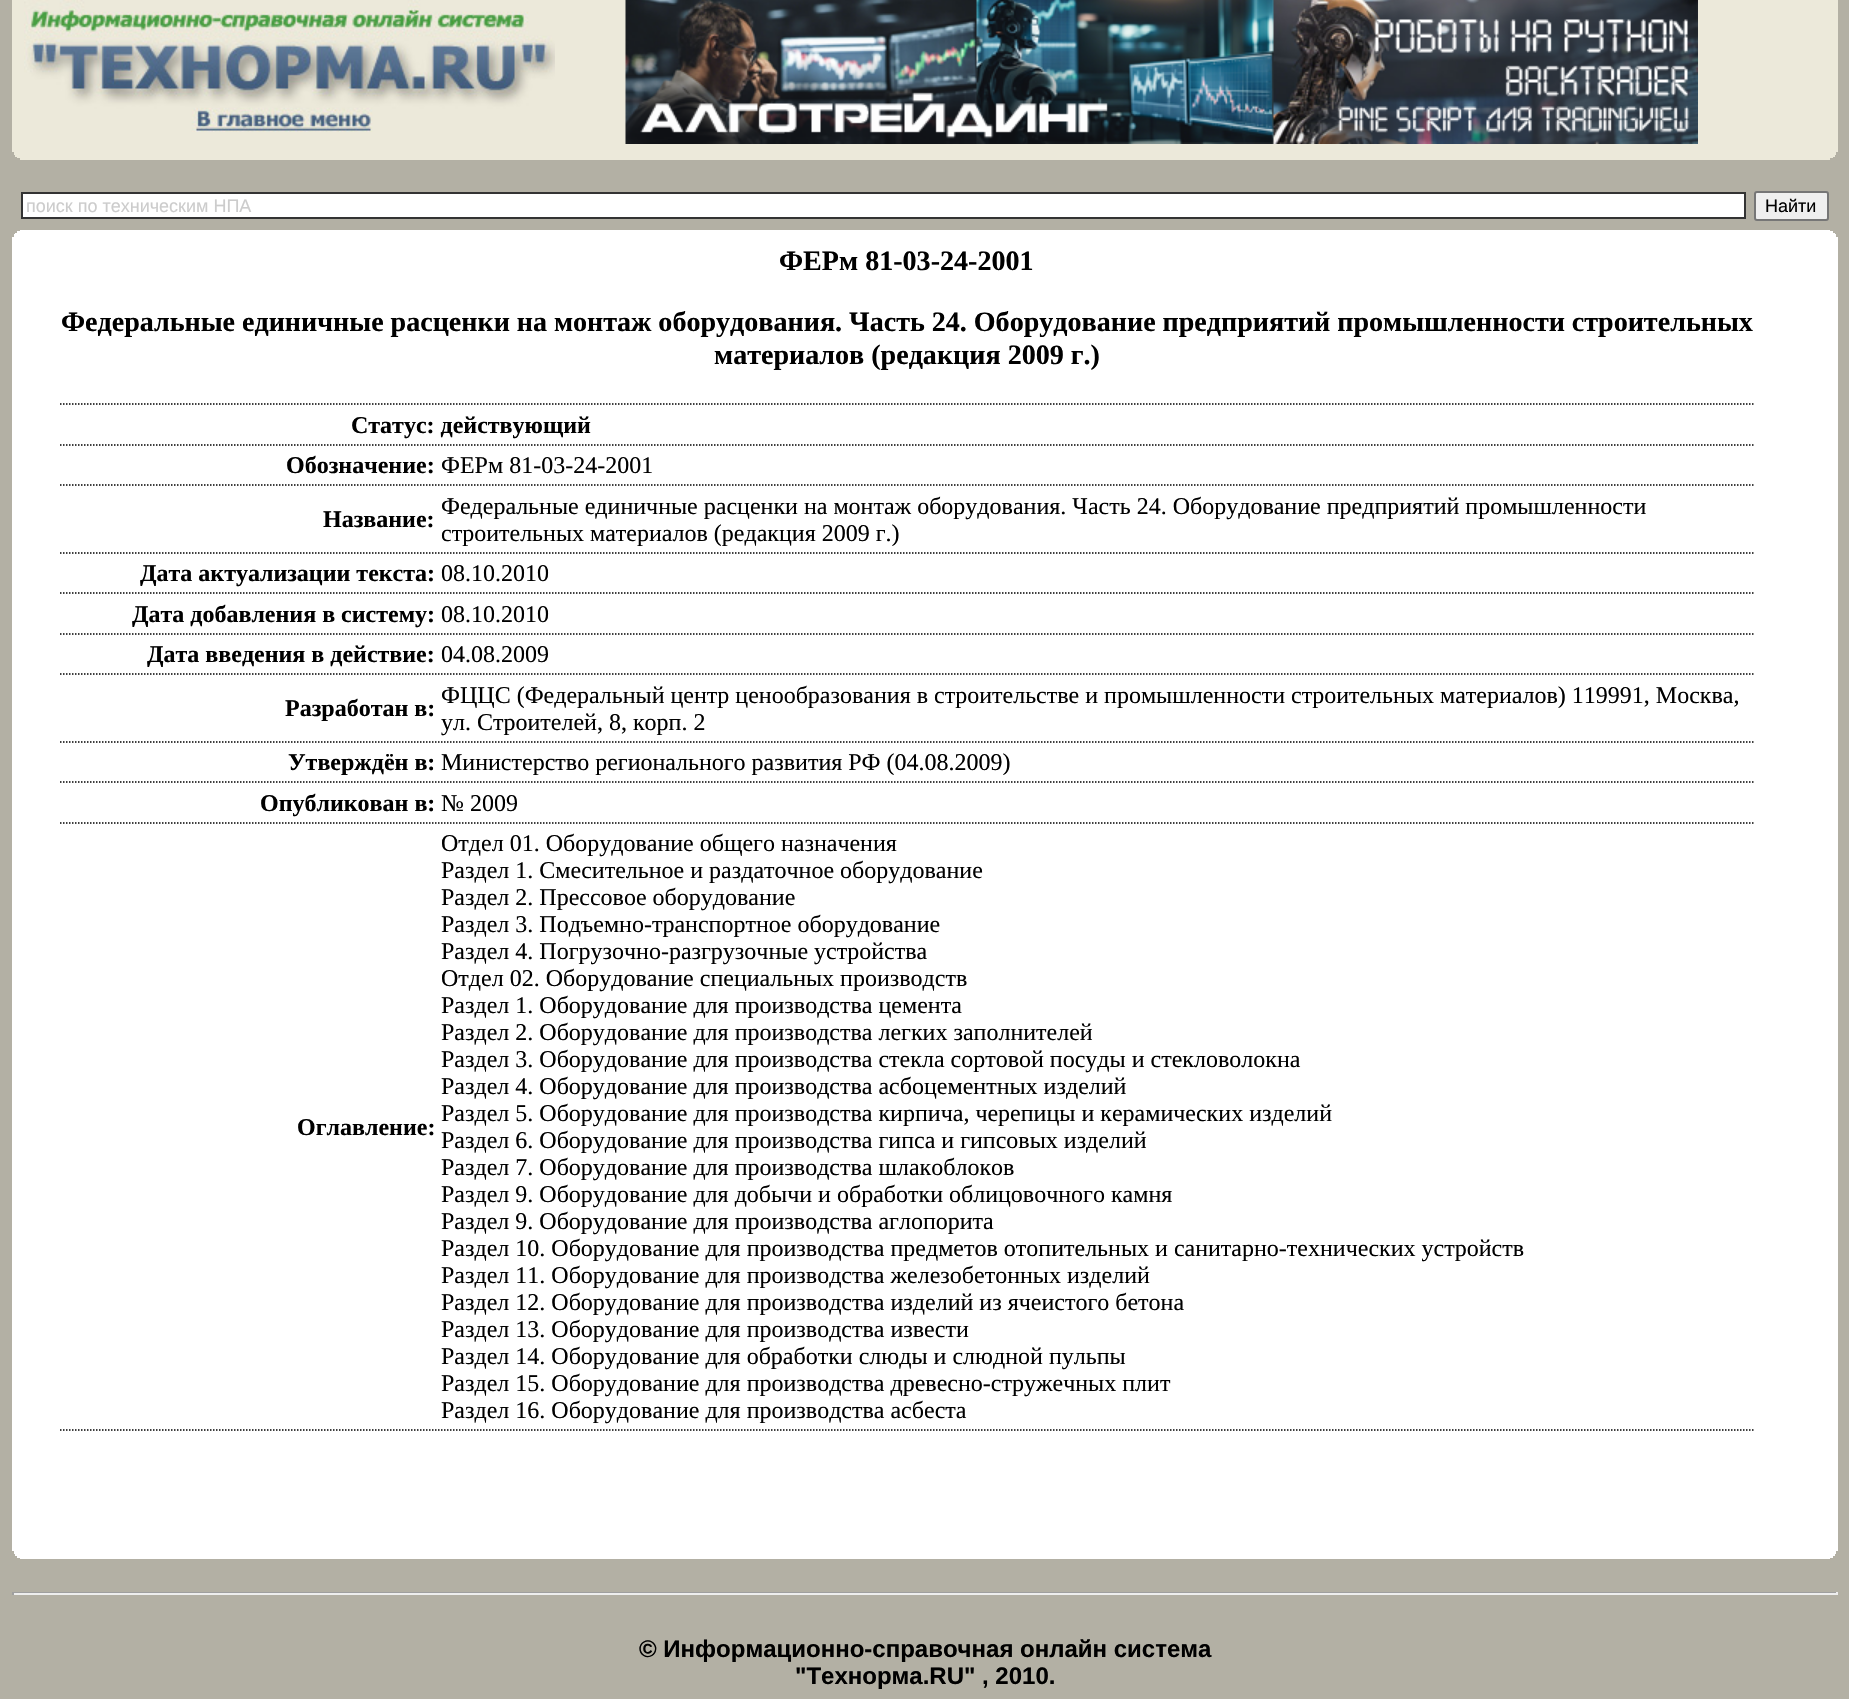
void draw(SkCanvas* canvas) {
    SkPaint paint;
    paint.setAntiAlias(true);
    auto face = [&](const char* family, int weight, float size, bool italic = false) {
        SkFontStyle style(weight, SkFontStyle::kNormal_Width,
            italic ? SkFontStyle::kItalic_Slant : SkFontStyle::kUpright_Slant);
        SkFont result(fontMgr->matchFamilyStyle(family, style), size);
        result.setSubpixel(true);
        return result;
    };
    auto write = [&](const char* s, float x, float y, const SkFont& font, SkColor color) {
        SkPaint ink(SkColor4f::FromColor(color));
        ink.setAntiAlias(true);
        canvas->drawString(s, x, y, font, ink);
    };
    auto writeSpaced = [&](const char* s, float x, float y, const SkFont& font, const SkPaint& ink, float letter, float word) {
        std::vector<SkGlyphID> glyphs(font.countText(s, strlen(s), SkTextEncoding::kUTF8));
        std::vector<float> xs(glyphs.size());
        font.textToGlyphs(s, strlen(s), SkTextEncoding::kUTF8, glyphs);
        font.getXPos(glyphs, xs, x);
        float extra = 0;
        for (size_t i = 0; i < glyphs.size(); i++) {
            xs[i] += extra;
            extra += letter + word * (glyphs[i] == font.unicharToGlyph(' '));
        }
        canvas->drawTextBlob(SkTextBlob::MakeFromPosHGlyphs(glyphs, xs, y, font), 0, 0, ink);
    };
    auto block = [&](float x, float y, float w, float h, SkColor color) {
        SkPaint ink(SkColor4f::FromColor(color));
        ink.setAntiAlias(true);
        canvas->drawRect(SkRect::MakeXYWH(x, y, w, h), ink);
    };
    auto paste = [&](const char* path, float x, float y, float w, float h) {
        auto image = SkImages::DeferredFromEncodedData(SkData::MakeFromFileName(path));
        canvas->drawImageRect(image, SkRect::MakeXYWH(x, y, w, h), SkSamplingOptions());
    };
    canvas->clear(SkColorSetRGB(179, 176, 164));
    block(12, 0, 1826, 152, SkColorSetRGB(236, 233, 218));
    paste("pic1.png", 24, 0, 531, 132);
    paste("pic2.png", 625, 0, 1073, 144);
    block(14, 152, 1822, 3, SkColorSetRGB(236, 233, 218));
    block(15, 155, 1820, 2, SkColorSetRGB(236, 233, 218));
    block(17, 157, 1816, 1, SkColorSetRGB(236, 233, 218));
    block(20, 158, 1810, 2, SkColorSetRGB(236, 233, 218));
    paint.setColor(SK_ColorWHITE);
    canvas->drawRect(SkRect::MakeXYWH(22, 193, 1723, 25), paint);
    paint.setStyle(SkPaint::kStroke_Style);
    paint.setStrokeWidth(2);
    paint.setColor(SkColorSetRGB(51, 51, 51));
    canvas->drawRect(SkRect::MakeXYWH(22, 193, 1723, 25), paint);
    auto kFont1 = face("Liberation Sans", 400, 18);
    write("поиск по техническим НПА", 26, 212, kFont1, SkColorSetRGB(204, 204, 204));
    paint.setStyle(SkPaint::kFill_Style);
    paint.setColor(SkColorSetRGB(239, 239, 239));
    canvas->drawRoundRect(SkRect::MakeXYWH(1755, 192, 73, 28), 2, 2, paint);
    paint.setStyle(SkPaint::kStroke_Style);
    paint.setColor(SkColorSetRGB(118, 118, 118));
    canvas->drawRoundRect(SkRect::MakeXYWH(1755, 192, 73, 28), 2, 2, paint);
    write("Найти", 1765, 212, kFont1, SK_ColorBLACK);
    block(20, 230, 1810, 1, SK_ColorWHITE);
    block(17, 231, 1816, 2, SK_ColorWHITE);
    block(15, 233, 1820, 1, SK_ColorWHITE);
    block(14, 234, 1822, 3, SK_ColorWHITE);
    block(12, 237, 1826, 1314, SK_ColorWHITE);
    auto kFont2 = face("Liberation Serif", 700, 28.08f);
    write("ФЕРм 81-03-24-2001", 779, 270, kFont2, SK_ColorBLACK);
    paint.setStyle(SkPaint::kFill_Style);
    paint.setColor(SK_ColorBLACK);
    writeSpaced("Федеральные единичные расценки на монтаж оборудования. Часть 24. Оборудование предприятий промышленности строительных", 61, 331, kFont2, paint, 0, -0.1f);
    write("материалов (редакция 2009 г.)", 714, 364, kFont2, SK_ColorBLACK);
    paint.setStyle(SkPaint::kStroke_Style);
    paint.setStrokeWidth(1.5f);
    paint.setPathEffect(SkDashPathEffect::Make({{1.5f, 1.5f}}, 0));
    canvas->drawPath(SkPathBuilder().moveTo(60, 404).lineTo(1753.5f, 404).detach(), paint);
    paint.setPathEffect(nullptr);
    auto kFont3 = face("Liberation Serif", 700, 24);
    write("Статус: действующий", 351, 433, kFont3, SK_ColorBLACK);
    paint.setPathEffect(SkDashPathEffect::Make({{1.5f, 1.5f}}, 0));
    canvas->drawPath(SkPathBuilder().moveTo(60, 445).lineTo(1753.5f, 445).detach(), paint);
    paint.setPathEffect(nullptr);
    write("Обозначение:", 286, 473, kFont3, SK_ColorBLACK);
    auto kFont4 = face("Liberation Serif", 400, 24);
    write("ФЕРм 81-03-24-2001", 441, 473, kFont4, SK_ColorBLACK);
    paint.setPathEffect(SkDashPathEffect::Make({{1.5f, 1.5f}}, 0));
    canvas->drawPath(SkPathBuilder().moveTo(60, 485).lineTo(1753.5f, 485).detach(), paint);
    paint.setPathEffect(nullptr);
    write("Название:", 323, 527, kFont3, SK_ColorBLACK);
    write("Федеральные единичные расценки на монтаж оборудования. Часть 24. Оборудование предприятий промышленности", 441, 514, kFont4, SK_ColorBLACK);
    write("строительных материалов (редакция 2009 г.)", 441, 541, kFont4, SK_ColorBLACK);
    paint.setPathEffect(SkDashPathEffect::Make({{1.5f, 1.5f}}, 0));
    canvas->drawPath(SkPathBuilder().moveTo(60, 553).lineTo(1753.5f, 553).detach(), paint);
    paint.setPathEffect(nullptr);
    write("Дата актуализации текста:", 140, 581, kFont3, SK_ColorBLACK);
    write("08.10.2010", 441, 581, kFont4, SK_ColorBLACK);
    paint.setPathEffect(SkDashPathEffect::Make({{1.5f, 1.5f}}, 0));
    canvas->drawPath(SkPathBuilder().moveTo(60, 593).lineTo(1753.5f, 593).detach(), paint);
    paint.setPathEffect(nullptr);
    write("Дата добавления в систему:", 132, 622, kFont3, SK_ColorBLACK);
    write("08.10.2010", 441, 622, kFont4, SK_ColorBLACK);
    paint.setPathEffect(SkDashPathEffect::Make({{1.5f, 1.5f}}, 0));
    canvas->drawPath(SkPathBuilder().moveTo(60, 634).lineTo(1753.5f, 634).detach(), paint);
    paint.setPathEffect(nullptr);
    write("Дата введения в действие:", 147, 662, kFont3, SK_ColorBLACK);
    write("04.08.2009", 441, 662, kFont4, SK_ColorBLACK);
    paint.setPathEffect(SkDashPathEffect::Make({{1.5f, 1.5f}}, 0));
    canvas->drawPath(SkPathBuilder().moveTo(60, 674).lineTo(1753.5f, 674).detach(), paint);
    paint.setPathEffect(nullptr);
    write("Разработан в:", 285, 716, kFont3, SK_ColorBLACK);
    write("ФЦЦС (Федеральный центр ценообразования в строительстве и промышленности строительных материалов) 119991, Москва,", 441, 703, kFont4, SK_ColorBLACK);
    write("ул. Строителей, 8, корп. 2", 441, 730, kFont4, SK_ColorBLACK);
    paint.setPathEffect(SkDashPathEffect::Make({{1.5f, 1.5f}}, 0));
    canvas->drawPath(SkPathBuilder().moveTo(60, 742).lineTo(1753.5f, 742).detach(), paint);
    paint.setPathEffect(nullptr);
    write("Утверждён в:", 288, 770, kFont3, SK_ColorBLACK);
    write("Министерство регионального развития РФ (04.08.2009)", 441, 770, kFont4, SK_ColorBLACK);
    paint.setPathEffect(SkDashPathEffect::Make({{1.5f, 1.5f}}, 0));
    canvas->drawPath(SkPathBuilder().moveTo(60, 782).lineTo(1753.5f, 782).detach(), paint);
    paint.setPathEffect(nullptr);
    write("Опубликован в:", 260, 811, kFont3, SK_ColorBLACK);
    write("№ 2009", 441, 811, kFont4, SK_ColorBLACK);
    paint.setPathEffect(SkDashPathEffect::Make({{1.5f, 1.5f}}, 0));
    canvas->drawPath(SkPathBuilder().moveTo(60, 823).lineTo(1753.5f, 823).detach(), paint);
    paint.setPathEffect(nullptr);
    write("Оглавление:", 297, 1135, kFont3, SK_ColorBLACK);
    write("Отдел 01. Оборудование общего назначения", 441, 851, kFont4, SK_ColorBLACK);
    write("Раздел 1. Смесительное и раздаточное оборудование", 441, 878, kFont4, SK_ColorBLACK);
    write("Раздел 2. Прессовое оборудование", 441, 905, kFont4, SK_ColorBLACK);
    write("Раздел 3. Подъемно-транспортное оборудование", 441, 932, kFont4, SK_ColorBLACK);
    write("Раздел 4. Погрузочно-разгрузочные устройства", 441, 959, kFont4, SK_ColorBLACK);
    write("Отдел 02. Оборудование специальных производств", 441, 986, kFont4, SK_ColorBLACK);
    write("Раздел 1. Оборудование для производства цемента", 441, 1013, kFont4, SK_ColorBLACK);
    write("Раздел 2. Оборудование для производства легких заполнителей", 441, 1040, kFont4, SK_ColorBLACK);
    write("Раздел 3. Оборудование для производства стекла сортовой посуды и стекловолокна", 441, 1067, kFont4, SK_ColorBLACK);
    write("Раздел 4. Оборудование для производства асбоцементных изделий", 441, 1094, kFont4, SK_ColorBLACK);
    write("Раздел 5. Оборудование для производства кирпича, черепицы и керамических изделий", 441, 1121, kFont4, SK_ColorBLACK);
    write("Раздел 6. Оборудование для производства гипса и гипсовых изделий", 441, 1148, kFont4, SK_ColorBLACK);
    write("Раздел 7. Оборудование для производства шлакоблоков", 441, 1175, kFont4, SK_ColorBLACK);
    write("Раздел 9. Оборудование для добычи и обработки облицовочного камня", 441, 1202, kFont4, SK_ColorBLACK);
    write("Раздел 9. Оборудование для производства аглопорита", 441, 1229, kFont4, SK_ColorBLACK);
    write("Раздел 10. Оборудование для производства предметов отопительных и санитарно-технических устройств", 441, 1256, kFont4, SK_ColorBLACK);
    write("Раздел 11. Оборудование для производства железобетонных изделий", 441, 1283, kFont4, SK_ColorBLACK);
    write("Раздел 12. Оборудование для производства изделий из ячеистого бетона", 441, 1310, kFont4, SK_ColorBLACK);
    write("Раздел 13. Оборудование для производства извести", 441, 1337, kFont4, SK_ColorBLACK);
    write("Раздел 14. Оборудование для обработки слюды и слюдной пульпы", 441, 1364, kFont4, SK_ColorBLACK);
    write("Раздел 15. Оборудование для производства древесно-стружечных плит", 441, 1391, kFont4, SK_ColorBLACK);
    write("Раздел 16. Оборудование для производства асбеста", 441, 1418, kFont4, SK_ColorBLACK);
    paint.setPathEffect(SkDashPathEffect::Make({{1.5f, 1.5f}}, 0));
    canvas->drawPath(SkPathBuilder().moveTo(60, 1430).lineTo(1753.5f, 1430).detach(), paint);
    paint.setPathEffect(nullptr);
    block(14, 1551, 1822, 3, SK_ColorWHITE);
    block(15, 1554, 1820, 2, SK_ColorWHITE);
    block(17, 1556, 1816, 2, SK_ColorWHITE);
    block(20, 1558, 1810, 1, SK_ColorWHITE);
    block(12, 1592, 1826, 1, SkColorSetRGB(159, 159, 159));
    block(1836, 1592, 2, 3, SkColorSetRGB(238, 238, 238));
    block(12, 1593, 1826, 2, SkColorSetRGB(238, 238, 238));
    block(12, 1592, 2, 3, SkColorSetRGB(159, 159, 159));
    auto kFont5 = face("Liberation Sans", 700, 24);
    write("© Информационно-справочная онлайн система", 639, 1657, kFont5, SK_ColorBLACK);
    write("\"Технорма.RU\" , 2010.", 795, 1684, kFont5, SK_ColorBLACK);
}
